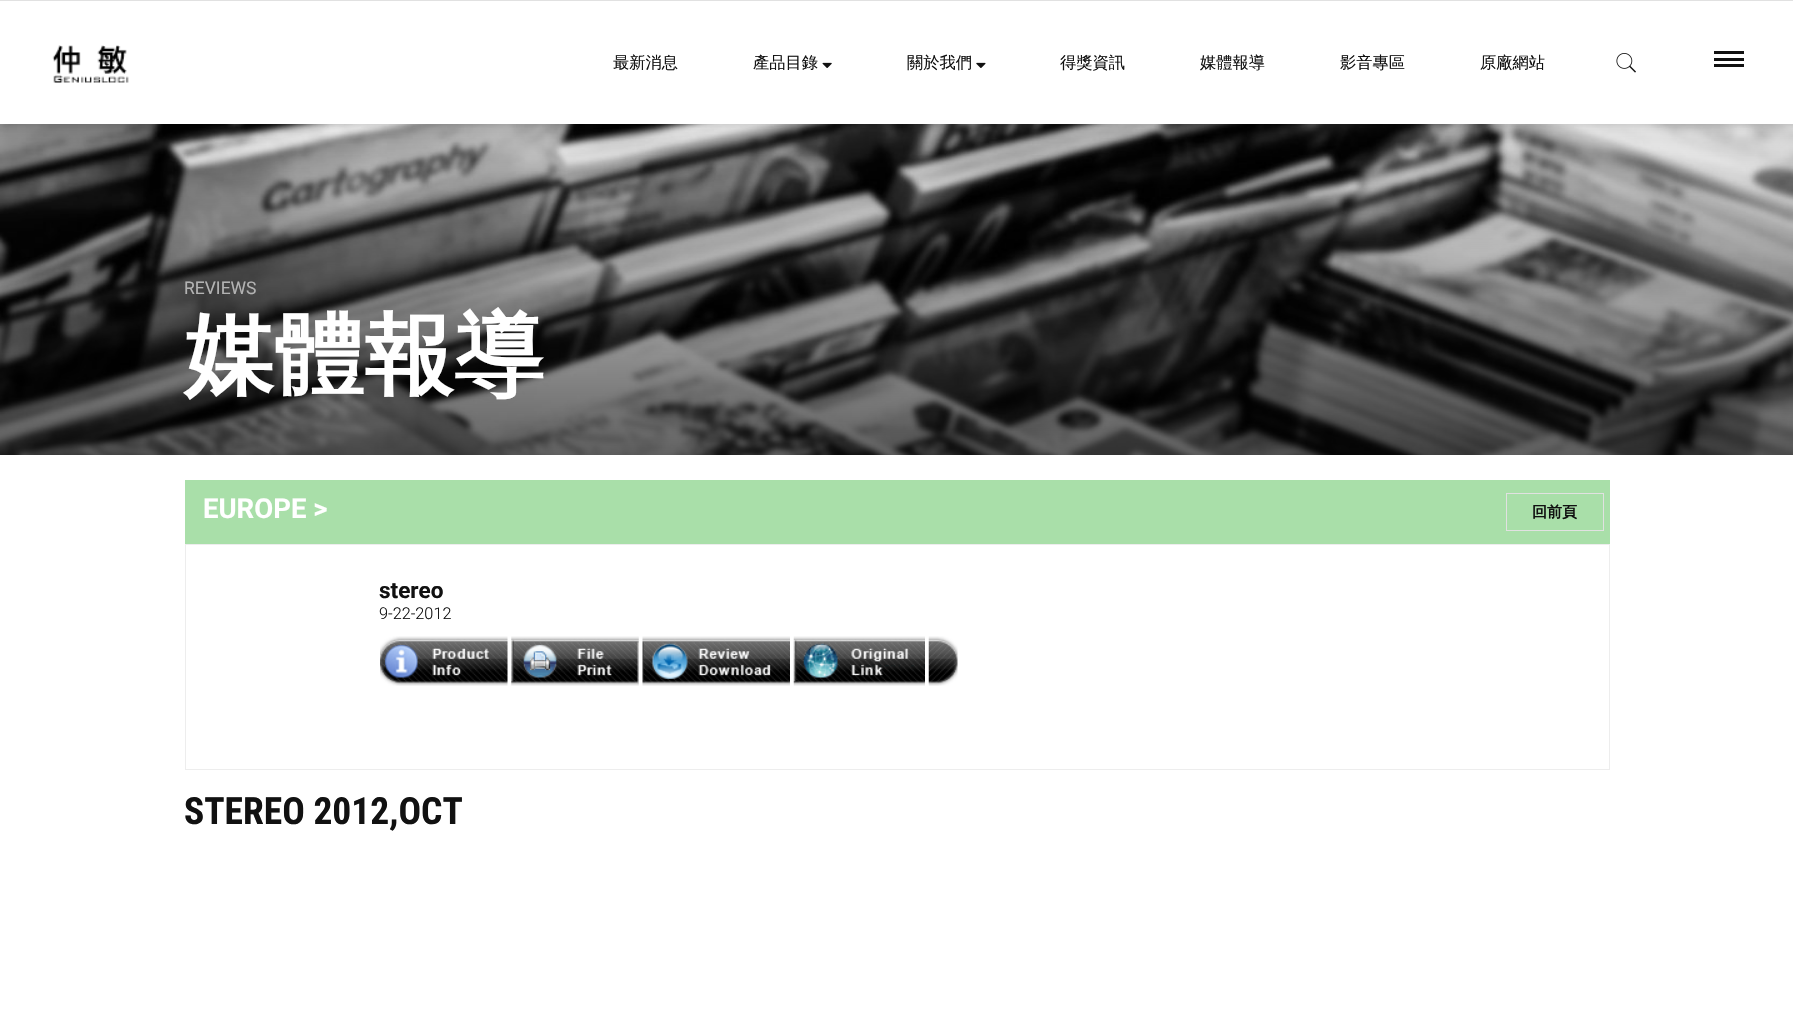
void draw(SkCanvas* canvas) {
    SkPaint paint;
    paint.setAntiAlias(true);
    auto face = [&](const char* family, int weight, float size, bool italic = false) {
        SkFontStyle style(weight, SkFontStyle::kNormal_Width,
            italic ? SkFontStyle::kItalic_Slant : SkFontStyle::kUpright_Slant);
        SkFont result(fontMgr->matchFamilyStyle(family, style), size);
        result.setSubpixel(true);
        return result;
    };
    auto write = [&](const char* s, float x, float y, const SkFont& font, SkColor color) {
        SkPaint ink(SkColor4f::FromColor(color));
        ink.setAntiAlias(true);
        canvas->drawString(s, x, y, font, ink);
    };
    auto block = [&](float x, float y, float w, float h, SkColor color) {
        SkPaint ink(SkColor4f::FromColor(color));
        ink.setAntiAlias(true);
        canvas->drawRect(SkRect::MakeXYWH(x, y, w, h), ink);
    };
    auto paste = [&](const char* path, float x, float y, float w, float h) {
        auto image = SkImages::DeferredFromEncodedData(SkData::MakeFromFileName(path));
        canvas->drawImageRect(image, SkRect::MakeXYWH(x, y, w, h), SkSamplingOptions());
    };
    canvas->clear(SK_ColorWHITE);
    paste("pic5.png", 0, 124, 1793, 331);
    paint.setColor(SkColorSetARGB(26, 0, 0, 0));
    paint.setMaskFilter(SkMaskFilter::MakeBlur(kNormal_SkBlurStyle, 2.5f));
    canvas->drawRect(SkRect::MakeXYWH(3, 3, 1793, 123), paint);
    paint.setMaskFilter(nullptr);
    block(0, 1, 1793, 123, SK_ColorWHITE);
    block(0, 0, 1793, 1, SkColorSetRGB(225, 225, 225));
    paste("pic1.png", 52, 45, 77, 38);
    auto kFont1 = face("WenQuanYi Zen Hei", 500, 16.25f);
    write("最新消息", 613, 68, kFont1, SkColorSetRGB(17, 17, 17));
    write("產品目錄", 753, 68, kFont1, SkColorSetRGB(17, 17, 17));
    paste("pic2.png", 822, 62, 10, 6);
    write("關於我們", 907, 68, kFont1, SkColorSetRGB(17, 17, 17));
    paste("pic3.png", 976, 62, 10, 6);
    write("得獎資訊", 1060, 68, kFont1, SkColorSetRGB(17, 17, 17));
    write("媒體報導", 1200, 68, kFont1, SkColorSetRGB(17, 17, 17));
    write("影音專區", 1340, 68, kFont1, SkColorSetRGB(17, 17, 17));
    write("原廠網站", 1480, 68, kFont1, SkColorSetRGB(17, 17, 17));
    paste("pic4.png", 1616, 53, 20, 20);
    block(1714, 51, 30, 3, SkColorSetRGB(17, 17, 17));
    block(1714, 58, 30, 3, SkColorSetRGB(17, 17, 17));
    block(1714, 64, 30, 3, SkColorSetRGB(17, 17, 17));
    auto kFont2 = face("Roboto", 400, 17.5f);
    write("REVIEWS", 184, 294, kFont2, SkColorSetRGB(179, 179, 179));
    auto kFont3 = face("WenQuanYi Zen Hei", 700, 90);
    write("媒體報導", 184, 386, kFont3, SK_ColorWHITE);
    block(185, 480, 1425, 64, SkColorSetRGB(169, 223, 169));
    auto kFont4 = face("Roboto", 700, 27.5f);
    write("EUROPE >", 203, 518, kFont4, SK_ColorWHITE);
    paint.setStyle(SkPaint::kStroke_Style);
    paint.setStrokeWidth(1);
    paint.setColor(SkColorSetRGB(225, 225, 225));
    canvas->drawRect(SkRect::MakeXYWH(1506.5f, 493.5f, 97, 37), paint);
    auto kFont5 = face("WenQuanYi Zen Hei", 700, 15);
    write("回前頁", 1532, 517, kFont5, SkColorSetRGB(17, 17, 17));
    paint.setColor(SkColorSetRGB(237, 237, 237));
    canvas->drawRect(SkRect::MakeXYWH(185.5f, 544.5f, 1424, 225), paint);
    auto kFont6 = face("Roboto", 700, 22.5f);
    write("stereo", 379, 598, kFont6, SkColorSetRGB(17, 17, 17));
    auto kFont7 = face("Roboto", 300, 16.25f);
    write("9-22-2012", 379, 619, kFont7, SkColorSetRGB(17, 17, 17));
    paste("pic6.png", 380, 636, 128, 50);
    paste("pic7.png", 511, 636, 128, 50);
    paste("pic8.png", 642, 636, 148, 50);
    paste("pic9.png", 793, 636, 132, 50);
    paste("pic10.png", 928, 636, 30, 50);
    auto kFont8 = face("Roboto Condensed", 700, 37.5f);
    write("STEREO 2012,OCT", 184, 824, kFont8, SkColorSetRGB(17, 17, 17));
}
